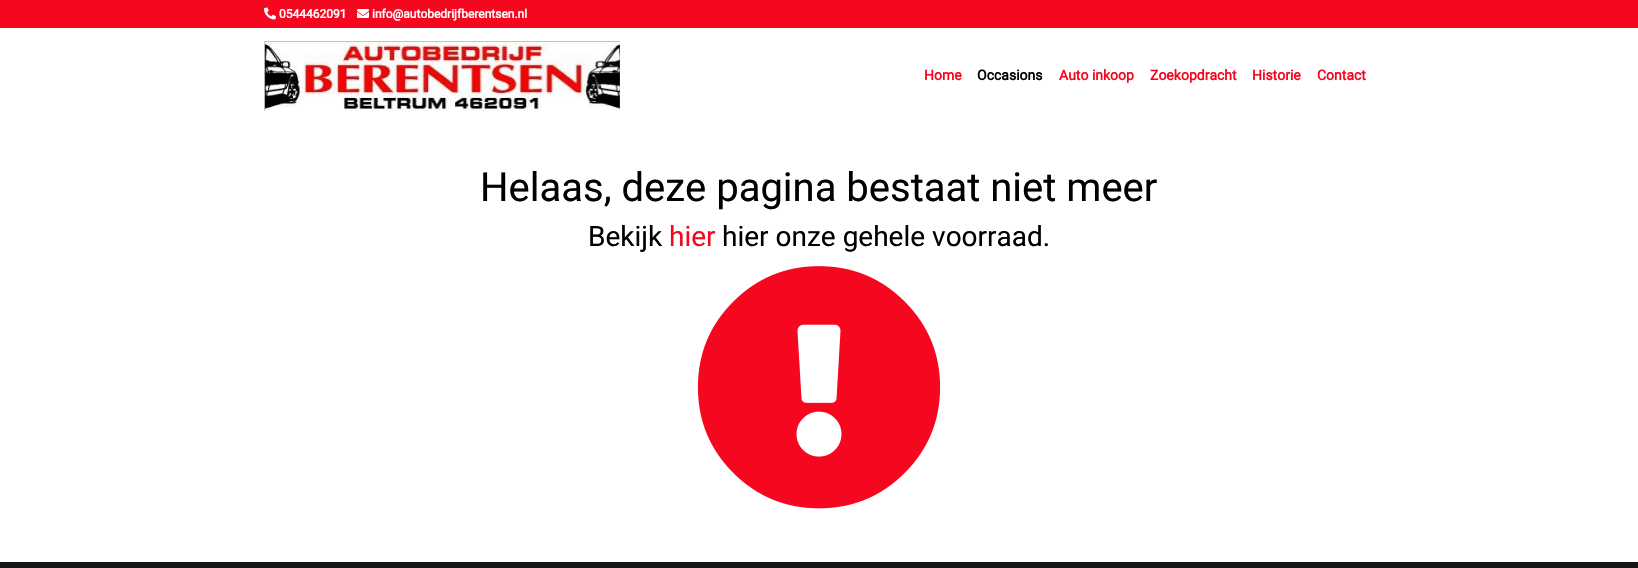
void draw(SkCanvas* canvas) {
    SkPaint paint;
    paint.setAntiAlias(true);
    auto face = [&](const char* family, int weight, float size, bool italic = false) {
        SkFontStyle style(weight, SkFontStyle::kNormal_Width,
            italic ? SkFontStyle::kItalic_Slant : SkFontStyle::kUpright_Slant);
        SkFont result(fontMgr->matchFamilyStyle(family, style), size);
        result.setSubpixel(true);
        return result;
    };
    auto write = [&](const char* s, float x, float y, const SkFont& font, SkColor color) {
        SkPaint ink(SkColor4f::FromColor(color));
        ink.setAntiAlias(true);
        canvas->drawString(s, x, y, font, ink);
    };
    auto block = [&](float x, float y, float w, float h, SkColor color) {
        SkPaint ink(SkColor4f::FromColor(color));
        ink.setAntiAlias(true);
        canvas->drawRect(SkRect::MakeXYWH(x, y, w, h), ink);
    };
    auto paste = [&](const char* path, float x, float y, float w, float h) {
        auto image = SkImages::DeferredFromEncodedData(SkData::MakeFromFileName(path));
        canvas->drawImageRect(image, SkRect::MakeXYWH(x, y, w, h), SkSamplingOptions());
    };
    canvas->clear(SK_ColorWHITE);
    block(0, 0, 1638, 28, SkColorSetRGB(245, 8, 31));
    paste("pic1.png", 264, 7, 12, 13);
    auto kFont1 = face("Roboto", 700, 12);
    write("0544462091", 279, 18, kFont1, SK_ColorWHITE);
    paste("pic2.png", 357, 9, 12, 9);
    write("info@autobedrijfberentsen.nl", 372, 18, kFont1, SK_ColorWHITE);
    paste("pic3.png", 264, 41, 356, 70);
    auto kFont2 = face("Roboto", 700, 14);
    write("Home", 924, 80, kFont2, SkColorSetRGB(245, 8, 31));
    write("Occasions", 977, 80, kFont2, SK_ColorBLACK);
    write("Auto inkoop", 1059, 80, kFont2, SkColorSetRGB(245, 8, 31));
    write("Zoekopdracht", 1150, 80, kFont2, SkColorSetRGB(245, 8, 31));
    write("Historie", 1252, 80, kFont2, SkColorSetRGB(245, 8, 31));
    write("Contact", 1317, 80, kFont2, SkColorSetRGB(245, 8, 31));
    auto kFont3 = face("Roboto", 400, 40);
    write("Helaas, deze pagina bestaat niet meer", 480, 201, kFont3, SK_ColorBLACK);
    auto kFont4 = face("Roboto", 400, 28);
    write("Bekijk", 588, 246, kFont4, SK_ColorBLACK);
    write("hier", 669, 246, kFont4, SkColorSetRGB(245, 8, 31));
    write("hier onze gehele voorraad.", 722, 246, kFont4, SK_ColorBLACK);
    paste("pic4.png", 697, 266, 244, 243);
    block(0, 562, 1638, 6, SkColorSetRGB(23, 23, 23));
}
